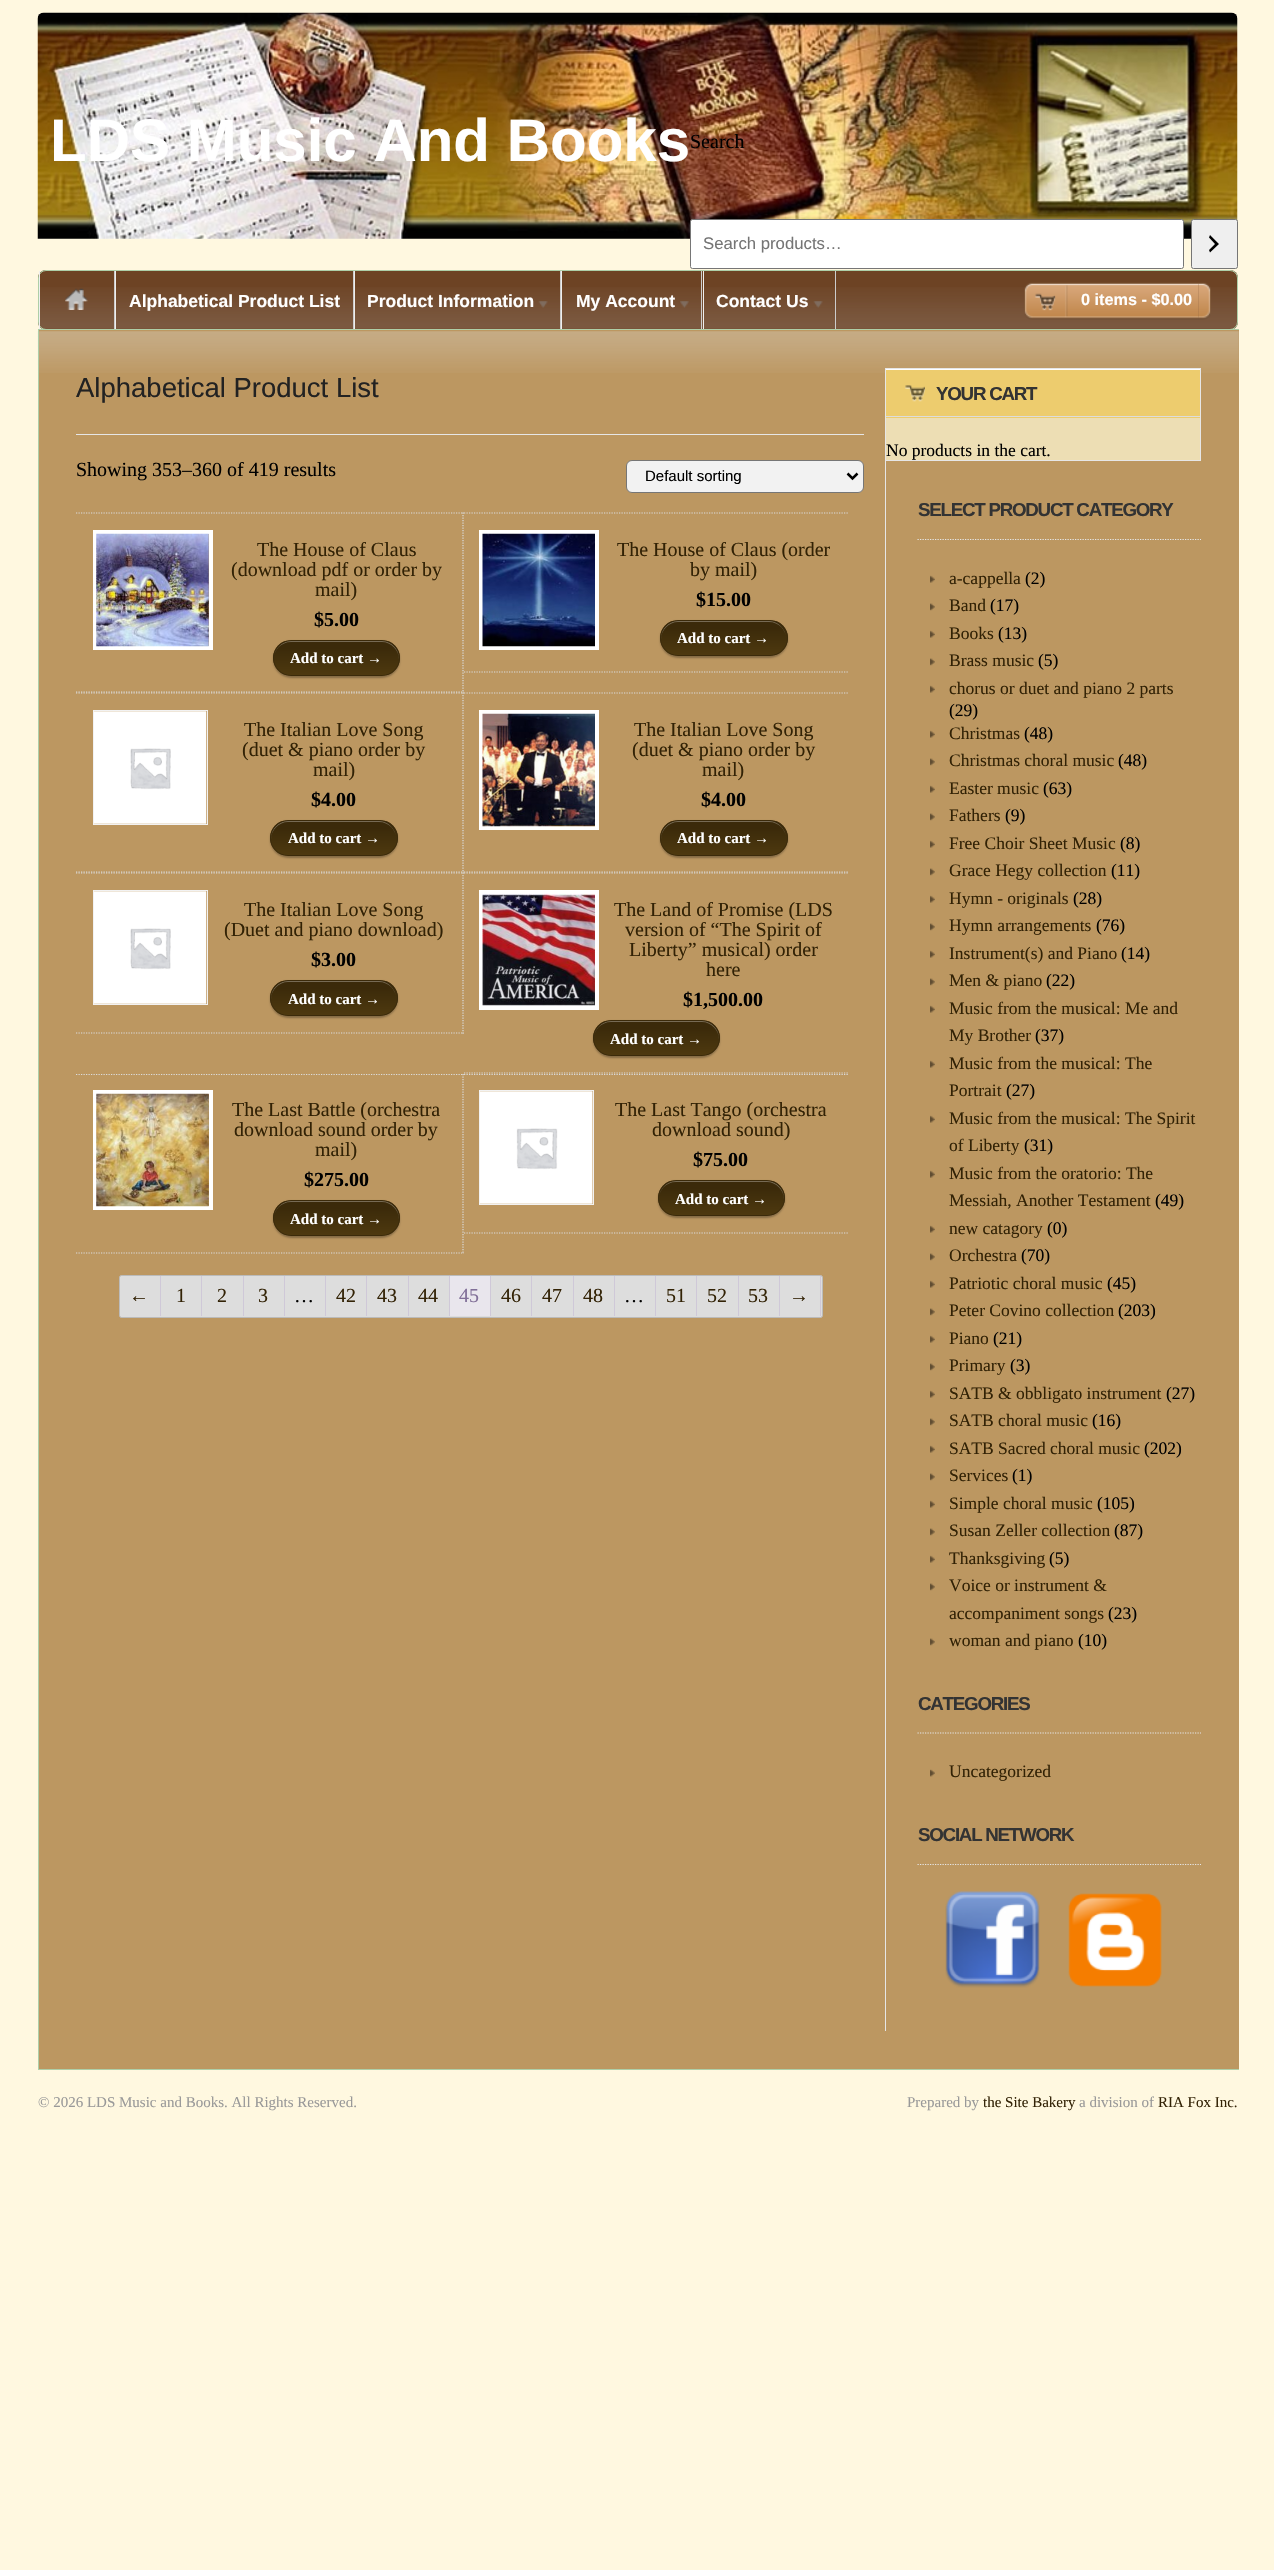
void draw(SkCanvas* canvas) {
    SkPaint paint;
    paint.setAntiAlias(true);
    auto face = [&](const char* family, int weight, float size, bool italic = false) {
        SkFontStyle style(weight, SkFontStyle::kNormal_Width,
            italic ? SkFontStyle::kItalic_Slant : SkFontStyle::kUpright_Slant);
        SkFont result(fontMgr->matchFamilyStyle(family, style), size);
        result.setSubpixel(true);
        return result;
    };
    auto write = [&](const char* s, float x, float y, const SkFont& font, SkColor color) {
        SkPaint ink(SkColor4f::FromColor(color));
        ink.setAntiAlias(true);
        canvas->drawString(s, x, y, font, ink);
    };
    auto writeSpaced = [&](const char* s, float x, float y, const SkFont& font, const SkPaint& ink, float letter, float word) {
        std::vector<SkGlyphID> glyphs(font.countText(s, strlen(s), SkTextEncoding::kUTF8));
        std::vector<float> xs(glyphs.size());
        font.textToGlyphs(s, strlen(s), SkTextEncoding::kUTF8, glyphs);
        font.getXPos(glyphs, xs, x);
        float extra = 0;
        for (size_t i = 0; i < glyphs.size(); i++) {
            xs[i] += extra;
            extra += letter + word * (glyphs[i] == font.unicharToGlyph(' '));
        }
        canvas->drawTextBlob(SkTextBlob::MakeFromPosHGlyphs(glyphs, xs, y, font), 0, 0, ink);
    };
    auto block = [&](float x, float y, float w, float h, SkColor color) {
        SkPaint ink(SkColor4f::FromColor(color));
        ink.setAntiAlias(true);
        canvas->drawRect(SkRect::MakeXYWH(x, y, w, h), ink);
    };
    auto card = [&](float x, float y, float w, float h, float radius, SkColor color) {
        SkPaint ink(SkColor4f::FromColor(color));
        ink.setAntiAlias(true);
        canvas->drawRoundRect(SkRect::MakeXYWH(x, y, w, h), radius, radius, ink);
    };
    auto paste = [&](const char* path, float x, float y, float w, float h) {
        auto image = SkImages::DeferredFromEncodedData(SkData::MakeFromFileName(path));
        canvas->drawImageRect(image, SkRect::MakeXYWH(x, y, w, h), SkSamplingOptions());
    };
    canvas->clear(SkColorSetRGB(255, 248, 224));
    paste("pic1.png", 37, 12, 1201, 227);
    auto kFont1 = face("Liberation Sans", 700, 60);
    write("LDS Music And Books", 50, 161, kFont1, SK_ColorWHITE);
    auto kFont2 = face("Liberation Serif", 400, 20);
    write("Search", 690, 148, kFont2, SK_ColorBLACK);
    paint.setColor(SK_ColorWHITE);
    canvas->drawRoundRect(SkRect::MakeXYWH(690.5f, 219.5f, 493, 49), 2, 2, paint);
    paint.setStyle(SkPaint::kStroke_Style);
    paint.setStrokeWidth(1);
    paint.setColor(SkColorSetRGB(118, 118, 118));
    canvas->drawRoundRect(SkRect::MakeXYWH(690.5f, 219.5f, 493, 49), 2, 2, paint);
    auto kFont3 = face("Liberation Sans", 400, 16.75f);
    write("Search products…", 703, 249, kFont3, SkColorSetRGB(117, 117, 117));
    paint.setStyle(SkPaint::kFill_Style);
    paint.setColor(SkColorSetRGB(239, 239, 239));
    canvas->drawRoundRect(SkRect::MakeXYWH(1191.5f, 219.5f, 46, 49), 2, 2, paint);
    paint.setStyle(SkPaint::kStroke_Style);
    paint.setColor(SkColorSetRGB(118, 118, 118));
    canvas->drawRoundRect(SkRect::MakeXYWH(1191.5f, 219.5f, 46, 49), 2, 2, paint);
    paint.setStyle(SkPaint::kFill_Style);
    paint.setColor(SK_ColorBLACK);
    canvas->drawPath(SkPathBuilder().moveTo(1209, 250).lineTo(1215, 244).lineTo(1209, 237.5f).lineTo(1210, 235).lineTo(1219, 244).lineTo(1210, 252.5f).close().detach(), paint);
    card(38, 270, 1200, 60, 8, SkColorSetRGB(109, 67, 36));
    paste("pic2.png", 38, 287, 1200, 42);
    paint.setStyle(SkPaint::kStroke_Style);
    paint.setColor(SkColorSetRGB(174, 207, 168));
    canvas->drawRoundRect(SkRect::MakeXYWH(38.5f, 270.5f, 1199, 59), 7.5f, 7.5f, paint);
    paste("pic3.png", 65, 288, 23, 22);
    block(114, 271, 1, 58, SkColorSetRGB(204, 204, 204));
    block(39, 271, 1, 58, SkColorSetRGB(238, 238, 238));
    block(353, 271, 1, 58, SkColorSetRGB(204, 204, 204));
    block(115, 271, 1, 58, SkColorSetRGB(238, 238, 238));
    auto kFont4 = face("Liberation Sans", 700, 17.5f);
    write("Alphabetical Product List", 129, 307, kFont4, SK_ColorWHITE);
    block(560, 271, 1, 58, SkColorSetRGB(204, 204, 204));
    block(354, 271, 1, 58, SkColorSetRGB(238, 238, 238));
    write("Product Information", 367, 307, kFont4, SK_ColorWHITE);
    paste("pic4.png", 538, 301, 10, 7);
    block(701, 271, 1, 58, SkColorSetRGB(204, 204, 204));
    block(561, 271, 1, 58, SkColorSetRGB(238, 238, 238));
    write("My Account", 576, 307, kFont4, SK_ColorWHITE);
    paste("pic5.png", 680, 301, 9, 7);
    block(835, 271, 1, 58, SkColorSetRGB(204, 204, 204));
    block(703, 271, 1, 58, SkColorSetRGB(238, 238, 238));
    write("Contact Us", 716, 307, kFont4, SK_ColorWHITE);
    paste("pic6.png", 813, 301, 10, 7);
    paste("pic7.png", 1198, 282, 13, 38);
    paste("pic8.png", 1024, 282, 175, 38);
    auto kFont5 = face("Liberation Sans", 700, 16.25f);
    write("0 items - $0.00", 1081, 305, kFont5, SK_ColorWHITE);
    block(39, 330, 1200, 1739, SkColorSetRGB(188, 151, 97));
    paste("pic9.png", 37, 331, 1202, 42);
    block(38, 329, 1201, 1, SkColorSetRGB(174, 207, 168));
    block(38, 2069, 1201, 1, SkColorSetRGB(174, 207, 168));
    block(38, 329, 1, 1741, SkColorSetRGB(174, 207, 168));
    block(76, 434, 788, 1, SkColorSetRGB(230, 230, 230));
    auto kFont6 = face("Liberation Sans", 400, 27.5f);
    write("Alphabetical Product List", 76, 397, kFont6, SkColorSetRGB(34, 34, 34));
    write("Showing 353–360 of 419 results", 76, 476, kFont2, SK_ColorBLACK);
    paint.setStyle(SkPaint::kFill_Style);
    paint.setColor(SkColorSetRGB(242, 242, 242));
    canvas->drawRoundRect(SkRect::MakeXYWH(626.5f, 460.5f, 237, 32), 5.5f, 5.5f, paint);
    paint.setStyle(SkPaint::kStroke_Style);
    paint.setColor(SkColorSetRGB(118, 118, 118));
    canvas->drawRoundRect(SkRect::MakeXYWH(626.5f, 460.5f, 237, 32), 5.5f, 5.5f, paint);
    paint.setStrokeWidth(2.5f);
    paint.setColor(SK_ColorBLACK);
    canvas->drawPath(SkPathBuilder().moveTo(847.5f, 473.5f).lineTo(852.5f, 478.5f).lineTo(857.5f, 473.5f).detach(), paint);
    auto kFont7 = face("Liberation Sans", 400, 15);
    write("Default sorting", 645, 481, kFont7, SK_ColorBLACK);
    paint.setStrokeWidth(1.2f);
    paint.setColor(SkColorSetRGB(219, 219, 219));
    paint.setPathEffect(SkDashPathEffect::Make({{1.25f, 1.25f}}, 0));
    canvas->drawPath(SkPathBuilder().moveTo(76, 513).lineTo(464, 513).detach(), paint);
    paint.setPathEffect(nullptr);
    paint.setPathEffect(SkDashPathEffect::Make({{1.25f, 1.25f}}, 0));
    canvas->drawPath(SkPathBuilder().moveTo(463, 512.5f).lineTo(463, 692.5f).detach(), paint);
    paint.setPathEffect(nullptr);
    paint.setPathEffect(SkDashPathEffect::Make({{1.25f, 1.25f}}, 0));
    canvas->drawPath(SkPathBuilder().moveTo(76, 692).lineTo(464, 692).detach(), paint);
    paint.setPathEffect(nullptr);
    paint.setStrokeWidth(4);
    paint.setColor(SK_ColorWHITE);
    canvas->drawRect(SkRect::MakeXYWH(95, 532, 116, 116), paint);
    paste("pic10.png", 96, 533, 113, 114);
    write("The House of Claus", 257, 556, kFont2, SkColorSetRGB(50, 34, 5));
    write("(download pdf or order by", 231, 576, kFont2, SkColorSetRGB(50, 34, 5));
    write("mail)", 315, 596, kFont2, SkColorSetRGB(50, 34, 5));
    auto kFont8 = face("Liberation Serif", 700, 20);
    write("$5.00", 314, 626, kFont8, SK_ColorBLACK);
    paint.setStyle(SkPaint::kFill_Style);
    paint.setColor(SkColorSetARGB(74, 0, 0, 0));
    paint.setMaskFilter(SkMaskFilter::MakeBlur(kNormal_SkBlurStyle, 1));
    canvas->drawRoundRect(SkRect::MakeXYWH(273, 641, 127, 37), 18.5f, 18.5f, paint);
    paint.setMaskFilter(nullptr);
    canvas->save();
    canvas->clipPath(SkPathBuilder().moveTo(291, 640).lineTo(382, 640).cubicTo(392, 640, 400, 648, 400, 658).cubicTo(400, 668, 392, 676, 382, 676).lineTo(291, 676).cubicTo(281, 676, 273, 668, 273, 658).cubicTo(273, 648, 281, 640, 291, 640).close().detach(), true);
    {
        const SkColor colors[] = {SkColorSetRGB(59, 42, 10), SkColorSetRGB(78, 57, 15)};
        const float stops[] = {0.2f, 1};
        const SkPoint ends[] = {{274, 641}, {274, 675}};
        paint.setShader(SkGradientShader::MakeLinear(ends, colors, stops, 2, SkTileMode::kClamp));
        paint.setAlpha(255);
    }
    canvas->drawRect(SkRect::MakeXYWH(273, 641, 127, 34), paint);
    canvas->restore();
    paint.setShader(nullptr);
    paint.setColor(SkColorSetRGB(118, 106, 84));
    canvas->drawPath(SkPathBuilder().moveTo(291, 642).lineTo(382, 642).cubicTo(391, 642, 399, 650, 399, 659).lineTo(399, 658).cubicTo(399, 649, 391, 641, 382, 641).lineTo(291, 641).cubicTo(282, 641, 274, 649, 274, 658).cubicTo(274, 650, 281, 642, 291, 642).close().detach(), paint);
    paint.setStyle(SkPaint::kStroke_Style);
    paint.setStrokeWidth(1);
    paint.setColor(SkColorSetRGB(59, 42, 10));
    canvas->drawRoundRect(SkRect::MakeXYWH(273.5f, 640.5f, 126, 35), 17.5f, 17.5f, paint);
    auto kFont9 = face("Liberation Serif", 700, 15);
    write("Add to cart →", 290, 663, kFont9, SK_ColorWHITE);
    paint.setStrokeWidth(1.2f);
    paint.setColor(SkColorSetRGB(219, 219, 219));
    paint.setPathEffect(SkDashPathEffect::Make({{1.25f, 1.25f}}, 0));
    canvas->drawPath(SkPathBuilder().moveTo(464, 513).lineTo(849, 513).detach(), paint);
    paint.setPathEffect(nullptr);
    paint.setPathEffect(SkDashPathEffect::Make({{1.25f, 1.25f}}, 0));
    canvas->drawPath(SkPathBuilder().moveTo(464, 672).lineTo(849, 672).detach(), paint);
    paint.setPathEffect(nullptr);
    paint.setStrokeWidth(4);
    paint.setColor(SK_ColorWHITE);
    canvas->drawRect(SkRect::MakeXYWH(481, 532, 116, 116), paint);
    paste("pic11.png", 482, 533, 113, 114);
    write("The House of Claus (order", 617, 556, kFont2, SkColorSetRGB(50, 34, 5));
    write("by mail)", 690, 576, kFont2, SkColorSetRGB(50, 34, 5));
    write("$15.00", 696, 606, kFont8, SK_ColorBLACK);
    paint.setStyle(SkPaint::kFill_Style);
    paint.setColor(SkColorSetARGB(74, 0, 0, 0));
    paint.setMaskFilter(SkMaskFilter::MakeBlur(kNormal_SkBlurStyle, 1));
    canvas->drawRoundRect(SkRect::MakeXYWH(660, 621, 128, 37), 18.5f, 18.5f, paint);
    paint.setMaskFilter(nullptr);
    canvas->save();
    canvas->clipPath(SkPathBuilder().moveTo(678, 620).lineTo(770, 620).cubicTo(780, 620, 788, 628, 788, 638).cubicTo(788, 648, 780, 656, 770, 656).lineTo(678, 656).cubicTo(668, 656, 660, 648, 660, 638).cubicTo(660, 628, 668, 620, 678, 620).close().detach(), true);
    {
        const SkColor colors[] = {SkColorSetRGB(59, 42, 10), SkColorSetRGB(78, 57, 15)};
        const float stops[] = {0.2f, 1};
        const SkPoint ends[] = {{661, 621}, {661, 655}};
        paint.setShader(SkGradientShader::MakeLinear(ends, colors, stops, 2, SkTileMode::kClamp));
        paint.setAlpha(255);
    }
    canvas->drawRect(SkRect::MakeXYWH(660, 621, 128, 34), paint);
    canvas->restore();
    paint.setShader(nullptr);
    paint.setColor(SkColorSetRGB(118, 106, 84));
    canvas->drawPath(SkPathBuilder().moveTo(678, 622).lineTo(769, 622).cubicTo(779, 622, 786, 630, 786, 638).cubicTo(786, 629, 778, 621, 769, 621).lineTo(678, 621).cubicTo(669, 621, 661, 629, 661, 638).lineTo(661, 639).cubicTo(661, 630, 669, 622, 678, 622).close().detach(), paint);
    paint.setStyle(SkPaint::kStroke_Style);
    paint.setStrokeWidth(1);
    paint.setColor(SkColorSetRGB(59, 42, 10));
    canvas->drawRoundRect(SkRect::MakeXYWH(660.5f, 620.5f, 127, 35), 17.5f, 17.5f, paint);
    write("Add to cart →", 677, 643, kFont9, SK_ColorWHITE);
    paint.setStrokeWidth(1.2f);
    paint.setColor(SkColorSetRGB(219, 219, 219));
    paint.setPathEffect(SkDashPathEffect::Make({{1.25f, 1.25f}}, 0));
    canvas->drawPath(SkPathBuilder().moveTo(76, 693).lineTo(464, 693).detach(), paint);
    paint.setPathEffect(nullptr);
    paint.setPathEffect(SkDashPathEffect::Make({{1.25f, 1.25f}}, 0));
    canvas->drawPath(SkPathBuilder().moveTo(463, 692.5f).lineTo(463, 872.5f).detach(), paint);
    paint.setPathEffect(nullptr);
    paint.setPathEffect(SkDashPathEffect::Make({{1.25f, 1.25f}}, 0));
    canvas->drawPath(SkPathBuilder().moveTo(76, 872).lineTo(464, 872).detach(), paint);
    paint.setPathEffect(nullptr);
    paint.setStrokeWidth(1);
    paint.setColor(SkColorSetRGB(242, 242, 242));
    canvas->drawRect(SkRect::MakeXYWH(93.5f, 710.5f, 114, 114), paint);
    paste("pic12.png", 94, 711, 113, 113);
    write("The Italian Love Song", 244, 736, kFont2, SkColorSetRGB(50, 34, 5));
    write("(duet & piano order by", 242, 756, kFont2, SkColorSetRGB(50, 34, 5));
    write("mail)", 313, 776, kFont2, SkColorSetRGB(50, 34, 5));
    write("$4.00", 311, 806, kFont8, SK_ColorBLACK);
    paint.setStyle(SkPaint::kFill_Style);
    paint.setColor(SkColorSetARGB(74, 0, 0, 0));
    paint.setMaskFilter(SkMaskFilter::MakeBlur(kNormal_SkBlurStyle, 1));
    canvas->drawRoundRect(SkRect::MakeXYWH(270, 821, 128, 37), 18.5f, 18.5f, paint);
    paint.setMaskFilter(nullptr);
    canvas->save();
    canvas->clipPath(SkPathBuilder().moveTo(288, 820).lineTo(380, 820).cubicTo(390, 820, 398, 828, 398, 838).cubicTo(398, 848, 390, 856, 380, 856).lineTo(288, 856).cubicTo(278, 856, 270, 848, 270, 838).cubicTo(270, 828, 278, 820, 288, 820).close().detach(), true);
    {
        const SkColor colors[] = {SkColorSetRGB(59, 42, 10), SkColorSetRGB(78, 57, 15)};
        const float stops[] = {0.2f, 1};
        const SkPoint ends[] = {{271, 821}, {271, 855}};
        paint.setShader(SkGradientShader::MakeLinear(ends, colors, stops, 2, SkTileMode::kClamp));
        paint.setAlpha(255);
    }
    canvas->drawRect(SkRect::MakeXYWH(270, 821, 128, 34), paint);
    canvas->restore();
    paint.setShader(nullptr);
    paint.setColor(SkColorSetRGB(118, 106, 84));
    canvas->drawPath(SkPathBuilder().moveTo(288, 822).lineTo(379, 822).cubicTo(389, 822, 396, 830, 396, 838).cubicTo(396, 829, 388, 821, 379, 821).lineTo(288, 821).cubicTo(279, 821, 271, 829, 271, 838).lineTo(271, 839).cubicTo(271, 830, 279, 822, 288, 822).close().detach(), paint);
    paint.setStyle(SkPaint::kStroke_Style);
    paint.setColor(SkColorSetRGB(59, 42, 10));
    canvas->drawRoundRect(SkRect::MakeXYWH(270.5f, 820.5f, 127, 35), 17.5f, 17.5f, paint);
    write("Add to cart →", 288, 843, kFont9, SK_ColorWHITE);
    paint.setStrokeWidth(1.2f);
    paint.setColor(SkColorSetRGB(219, 219, 219));
    paint.setPathEffect(SkDashPathEffect::Make({{1.25f, 1.25f}}, 0));
    canvas->drawPath(SkPathBuilder().moveTo(464, 693).lineTo(849, 693).detach(), paint);
    paint.setPathEffect(nullptr);
    paint.setPathEffect(SkDashPathEffect::Make({{1.25f, 1.25f}}, 0));
    canvas->drawPath(SkPathBuilder().moveTo(464, 872).lineTo(849, 872).detach(), paint);
    paint.setPathEffect(nullptr);
    paint.setStrokeWidth(4);
    paint.setColor(SK_ColorWHITE);
    canvas->drawRect(SkRect::MakeXYWH(481, 712, 116, 116), paint);
    paste("pic13.png", 482, 713, 113, 114);
    write("The Italian Love Song", 634, 736, kFont2, SkColorSetRGB(50, 34, 5));
    write("(duet & piano order by", 632, 756, kFont2, SkColorSetRGB(50, 34, 5));
    write("mail)", 702, 776, kFont2, SkColorSetRGB(50, 34, 5));
    write("$4.00", 701, 806, kFont8, SK_ColorBLACK);
    paint.setStyle(SkPaint::kFill_Style);
    paint.setColor(SkColorSetARGB(74, 0, 0, 0));
    paint.setMaskFilter(SkMaskFilter::MakeBlur(kNormal_SkBlurStyle, 1));
    canvas->drawRoundRect(SkRect::MakeXYWH(660, 821, 128, 37), 18.5f, 18.5f, paint);
    paint.setMaskFilter(nullptr);
    canvas->save();
    canvas->clipPath(SkPathBuilder().moveTo(678, 820).lineTo(770, 820).cubicTo(780, 820, 788, 828, 788, 838).cubicTo(788, 848, 780, 856, 770, 856).lineTo(678, 856).cubicTo(668, 856, 660, 848, 660, 838).cubicTo(660, 828, 668, 820, 678, 820).close().detach(), true);
    {
        const SkColor colors[] = {SkColorSetRGB(59, 42, 10), SkColorSetRGB(78, 57, 15)};
        const float stops[] = {0.2f, 1};
        const SkPoint ends[] = {{661, 821}, {661, 855}};
        paint.setShader(SkGradientShader::MakeLinear(ends, colors, stops, 2, SkTileMode::kClamp));
        paint.setAlpha(255);
    }
    canvas->drawRect(SkRect::MakeXYWH(660, 821, 128, 34), paint);
    canvas->restore();
    paint.setShader(nullptr);
    paint.setColor(SkColorSetRGB(118, 106, 84));
    canvas->drawPath(SkPathBuilder().moveTo(678, 822).lineTo(769, 822).cubicTo(779, 822, 786, 830, 786, 838).cubicTo(786, 829, 778, 821, 769, 821).lineTo(678, 821).cubicTo(669, 821, 661, 829, 661, 838).lineTo(661, 839).cubicTo(661, 830, 669, 822, 678, 822).close().detach(), paint);
    paint.setStyle(SkPaint::kStroke_Style);
    paint.setStrokeWidth(1);
    paint.setColor(SkColorSetRGB(59, 42, 10));
    canvas->drawRoundRect(SkRect::MakeXYWH(660.5f, 820.5f, 127, 35), 17.5f, 17.5f, paint);
    write("Add to cart →", 677, 843, kFont9, SK_ColorWHITE);
    paint.setStrokeWidth(1.2f);
    paint.setColor(SkColorSetRGB(219, 219, 219));
    paint.setPathEffect(SkDashPathEffect::Make({{1.25f, 1.25f}}, 0));
    canvas->drawPath(SkPathBuilder().moveTo(76, 873).lineTo(464, 873).detach(), paint);
    paint.setPathEffect(nullptr);
    paint.setPathEffect(SkDashPathEffect::Make({{1.25f, 1.25f}}, 0));
    canvas->drawPath(SkPathBuilder().moveTo(463, 872.5f).lineTo(463, 1034).detach(), paint);
    paint.setPathEffect(nullptr);
    paint.setPathEffect(SkDashPathEffect::Make({{1.25f, 1.25f}}, 0));
    canvas->drawPath(SkPathBuilder().moveTo(76, 1033).lineTo(464, 1033).detach(), paint);
    paint.setPathEffect(nullptr);
    paint.setStrokeWidth(1);
    paint.setColor(SkColorSetRGB(242, 242, 242));
    canvas->drawRect(SkRect::MakeXYWH(93.5f, 890.5f, 114, 114), paint);
    paste("pic12.png", 94, 891, 113, 113);
    write("The Italian Love Song", 244, 916, kFont2, SkColorSetRGB(50, 34, 5));
    write("(Duet and piano download)", 224, 936, kFont2, SkColorSetRGB(50, 34, 5));
    write("$3.00", 311, 966, kFont8, SK_ColorBLACK);
    paint.setStyle(SkPaint::kFill_Style);
    paint.setColor(SkColorSetARGB(74, 0, 0, 0));
    paint.setMaskFilter(SkMaskFilter::MakeBlur(kNormal_SkBlurStyle, 1));
    canvas->drawRoundRect(SkRect::MakeXYWH(270, 981, 128, 37), 18.5f, 18.5f, paint);
    paint.setMaskFilter(nullptr);
    canvas->save();
    canvas->clipPath(SkPathBuilder().moveTo(288, 980).lineTo(380, 980).cubicTo(390, 980, 398, 988, 398, 998).cubicTo(398, 1008, 390, 1016, 380, 1016).lineTo(288, 1016).cubicTo(278, 1016, 270, 1008, 270, 998).cubicTo(270, 988, 278, 980, 288, 980).close().detach(), true);
    {
        const SkColor colors[] = {SkColorSetRGB(59, 42, 10), SkColorSetRGB(78, 57, 15)};
        const float stops[] = {0.2f, 1};
        const SkPoint ends[] = {{271, 981}, {271, 1015}};
        paint.setShader(SkGradientShader::MakeLinear(ends, colors, stops, 2, SkTileMode::kClamp));
        paint.setAlpha(255);
    }
    canvas->drawRect(SkRect::MakeXYWH(270, 981, 128, 34), paint);
    canvas->restore();
    paint.setShader(nullptr);
    paint.setColor(SkColorSetRGB(118, 106, 84));
    canvas->drawPath(SkPathBuilder().moveTo(288, 982).lineTo(379, 982).cubicTo(389, 982, 396, 990, 396, 998).cubicTo(396, 989, 388, 981, 379, 981).lineTo(288, 981).cubicTo(279, 981, 271, 989, 271, 998).lineTo(271, 999).cubicTo(271, 990, 279, 982, 288, 982).close().detach(), paint);
    paint.setStyle(SkPaint::kStroke_Style);
    paint.setColor(SkColorSetRGB(59, 42, 10));
    canvas->drawRoundRect(SkRect::MakeXYWH(270.5f, 980.5f, 127, 35), 17.5f, 17.5f, paint);
    write("Add to cart →", 288, 1004, kFont9, SK_ColorWHITE);
    paint.setStrokeWidth(1.2f);
    paint.setColor(SkColorSetRGB(219, 219, 219));
    paint.setPathEffect(SkDashPathEffect::Make({{1.25f, 1.25f}}, 0));
    canvas->drawPath(SkPathBuilder().moveTo(464, 873).lineTo(849, 873).detach(), paint);
    paint.setPathEffect(nullptr);
    paint.setPathEffect(SkDashPathEffect::Make({{1.25f, 1.25f}}, 0));
    canvas->drawPath(SkPathBuilder().moveTo(464, 1073).lineTo(849, 1073).detach(), paint);
    paint.setPathEffect(nullptr);
    paint.setStrokeWidth(4);
    paint.setColor(SK_ColorWHITE);
    canvas->drawRect(SkRect::MakeXYWH(481, 892, 116, 116), paint);
    paste("pic14.png", 482, 893, 113, 113);
    write("The Land of Promise (LDS", 614, 916, kFont2, SkColorSetRGB(50, 34, 5));
    write("version of “The Spirit of", 625, 936, kFont2, SkColorSetRGB(50, 34, 5));
    write("Liberty” musical) order", 629, 956, kFont2, SkColorSetRGB(50, 34, 5));
    write("here", 706, 976, kFont2, SkColorSetRGB(50, 34, 5));
    write("$1,500.00", 683, 1006, kFont8, SK_ColorBLACK);
    paint.setStyle(SkPaint::kFill_Style);
    paint.setColor(SkColorSetARGB(74, 0, 0, 0));
    paint.setMaskFilter(SkMaskFilter::MakeBlur(kNormal_SkBlurStyle, 1));
    canvas->drawRoundRect(SkRect::MakeXYWH(593, 1021, 127, 37), 18.5f, 18.5f, paint);
    paint.setMaskFilter(nullptr);
    canvas->save();
    canvas->clipPath(SkPathBuilder().moveTo(611, 1020).lineTo(702, 1020).cubicTo(712, 1020, 720, 1028, 720, 1038).cubicTo(720, 1048, 712, 1056, 702, 1056).lineTo(611, 1056).cubicTo(601, 1056, 593, 1048, 593, 1038).cubicTo(593, 1028, 601, 1020, 611, 1020).close().detach(), true);
    {
        const SkColor colors[] = {SkColorSetRGB(59, 42, 10), SkColorSetRGB(78, 57, 15)};
        const float stops[] = {0.2f, 1};
        const SkPoint ends[] = {{594, 1021}, {594, 1055}};
        paint.setShader(SkGradientShader::MakeLinear(ends, colors, stops, 2, SkTileMode::kClamp));
        paint.setAlpha(255);
    }
    canvas->drawRect(SkRect::MakeXYWH(593, 1021, 127, 34), paint);
    canvas->restore();
    paint.setShader(nullptr);
    paint.setColor(SkColorSetRGB(118, 106, 84));
    canvas->drawPath(SkPathBuilder().moveTo(611, 1022).lineTo(702, 1022).cubicTo(711, 1022, 719, 1030, 719, 1039).lineTo(719, 1038).cubicTo(719, 1029, 711, 1021, 702, 1021).lineTo(611, 1021).cubicTo(602, 1021, 594, 1029, 594, 1038).cubicTo(594, 1030, 601, 1022, 611, 1022).close().detach(), paint);
    paint.setStyle(SkPaint::kStroke_Style);
    paint.setStrokeWidth(1);
    paint.setColor(SkColorSetRGB(59, 42, 10));
    canvas->drawRoundRect(SkRect::MakeXYWH(593.5f, 1020.5f, 126, 35), 17.5f, 17.5f, paint);
    write("Add to cart →", 610, 1044, kFont9, SK_ColorWHITE);
    paint.setStrokeWidth(1.2f);
    paint.setColor(SkColorSetRGB(219, 219, 219));
    paint.setPathEffect(SkDashPathEffect::Make({{1.25f, 1.25f}}, 0));
    canvas->drawPath(SkPathBuilder().moveTo(76, 1074.5f).lineTo(464, 1074.5f).detach(), paint);
    paint.setPathEffect(nullptr);
    paint.setPathEffect(SkDashPathEffect::Make({{1.25f, 1.25f}}, 0));
    canvas->drawPath(SkPathBuilder().moveTo(463, 1074).lineTo(463, 1254).detach(), paint);
    paint.setPathEffect(nullptr);
    paint.setPathEffect(SkDashPathEffect::Make({{1.25f, 1.25f}}, 0));
    canvas->drawPath(SkPathBuilder().moveTo(76, 1253).lineTo(464, 1253).detach(), paint);
    paint.setPathEffect(nullptr);
    paint.setStrokeWidth(4);
    paint.setColor(SK_ColorWHITE);
    canvas->drawRect(SkRect::MakeXYWH(95, 1092, 116, 116), paint);
    paste("pic15.png", 96, 1093, 113, 114);
    write("The Last Battle (orchestra", 232, 1116, kFont2, SkColorSetRGB(50, 34, 5));
    write("download sound order by", 234, 1136, kFont2, SkColorSetRGB(50, 34, 5));
    write("mail)", 315, 1156, kFont2, SkColorSetRGB(50, 34, 5));
    write("$275.00", 304, 1186, kFont8, SK_ColorBLACK);
    paint.setStyle(SkPaint::kFill_Style);
    paint.setColor(SkColorSetARGB(74, 0, 0, 0));
    paint.setMaskFilter(SkMaskFilter::MakeBlur(kNormal_SkBlurStyle, 1));
    canvas->drawRoundRect(SkRect::MakeXYWH(273, 1201, 127, 37), 18.5f, 18.5f, paint);
    paint.setMaskFilter(nullptr);
    canvas->save();
    canvas->clipPath(SkPathBuilder().moveTo(291, 1200).lineTo(382, 1200).cubicTo(392, 1200, 400, 1208, 400, 1218).cubicTo(400, 1228, 392, 1236, 382, 1236).lineTo(291, 1236).cubicTo(281, 1236, 273, 1228, 273, 1218).cubicTo(273, 1208, 281, 1200, 291, 1200).close().detach(), true);
    {
        const SkColor colors[] = {SkColorSetRGB(59, 42, 10), SkColorSetRGB(78, 57, 15)};
        const float stops[] = {0.2f, 1};
        const SkPoint ends[] = {{274, 1201}, {274, 1235}};
        paint.setShader(SkGradientShader::MakeLinear(ends, colors, stops, 2, SkTileMode::kClamp));
        paint.setAlpha(255);
    }
    canvas->drawRect(SkRect::MakeXYWH(273, 1201, 127, 34), paint);
    canvas->restore();
    paint.setShader(nullptr);
    paint.setColor(SkColorSetRGB(118, 106, 84));
    canvas->drawPath(SkPathBuilder().moveTo(291, 1202).lineTo(382, 1202).cubicTo(391, 1202, 399, 1210, 399, 1219).lineTo(399, 1218).cubicTo(399, 1209, 391, 1201, 382, 1201).lineTo(291, 1201).cubicTo(282, 1201, 274, 1209, 274, 1218).cubicTo(274, 1210, 281, 1202, 291, 1202).close().detach(), paint);
    paint.setStyle(SkPaint::kStroke_Style);
    paint.setStrokeWidth(1);
    paint.setColor(SkColorSetRGB(59, 42, 10));
    canvas->drawRoundRect(SkRect::MakeXYWH(273.5f, 1200.5f, 126, 35), 17.5f, 17.5f, paint);
    write("Add to cart →", 290, 1224, kFont9, SK_ColorWHITE);
    paint.setStrokeWidth(1.2f);
    paint.setColor(SkColorSetRGB(219, 219, 219));
    paint.setPathEffect(SkDashPathEffect::Make({{1.25f, 1.25f}}, 0));
    canvas->drawPath(SkPathBuilder().moveTo(464, 1074.5f).lineTo(849, 1074.5f).detach(), paint);
    paint.setPathEffect(nullptr);
    paint.setPathEffect(SkDashPathEffect::Make({{1.25f, 1.25f}}, 0));
    canvas->drawPath(SkPathBuilder().moveTo(464, 1233).lineTo(849, 1233).detach(), paint);
    paint.setPathEffect(nullptr);
    paint.setStrokeWidth(1);
    paint.setColor(SkColorSetRGB(242, 242, 242));
    canvas->drawRect(SkRect::MakeXYWH(479.5f, 1090.5f, 114, 114), paint);
    paste("pic16.png", 480, 1091, 113, 113);
    write("The Last Tango (orchestra", 615, 1116, kFont2, SkColorSetRGB(50, 34, 5));
    write("download sound)", 652, 1136, kFont2, SkColorSetRGB(50, 34, 5));
    write("$75.00", 693, 1166, kFont8, SK_ColorBLACK);
    paint.setStyle(SkPaint::kFill_Style);
    paint.setColor(SkColorSetARGB(74, 0, 0, 0));
    paint.setMaskFilter(SkMaskFilter::MakeBlur(kNormal_SkBlurStyle, 1));
    canvas->drawRoundRect(SkRect::MakeXYWH(658, 1181, 127, 37), 18.5f, 18.5f, paint);
    paint.setMaskFilter(nullptr);
    canvas->save();
    canvas->clipPath(SkPathBuilder().moveTo(676, 1180).lineTo(767, 1180).cubicTo(777, 1180, 785, 1188, 785, 1198).cubicTo(785, 1208, 777, 1216, 767, 1216).lineTo(676, 1216).cubicTo(666, 1216, 658, 1208, 658, 1198).cubicTo(658, 1188, 666, 1180, 676, 1180).close().detach(), true);
    {
        const SkColor colors[] = {SkColorSetRGB(59, 42, 10), SkColorSetRGB(78, 57, 15)};
        const float stops[] = {0.2f, 1};
        const SkPoint ends[] = {{659, 1181}, {659, 1215}};
        paint.setShader(SkGradientShader::MakeLinear(ends, colors, stops, 2, SkTileMode::kClamp));
        paint.setAlpha(255);
    }
    canvas->drawRect(SkRect::MakeXYWH(658, 1181, 127, 34), paint);
    canvas->restore();
    paint.setShader(nullptr);
    paint.setColor(SkColorSetRGB(118, 106, 84));
    canvas->drawPath(SkPathBuilder().moveTo(676, 1182).lineTo(767, 1182).cubicTo(776, 1182, 784, 1190, 784, 1199).lineTo(784, 1198).cubicTo(784, 1189, 776, 1181, 767, 1181).lineTo(676, 1181).cubicTo(667, 1181, 659, 1189, 659, 1198).cubicTo(659, 1190, 666, 1182, 676, 1182).close().detach(), paint);
    paint.setStyle(SkPaint::kStroke_Style);
    paint.setColor(SkColorSetRGB(59, 42, 10));
    canvas->drawRoundRect(SkRect::MakeXYWH(658.5f, 1180.5f, 126, 35), 17.5f, 17.5f, paint);
    write("Add to cart →", 675, 1204, kFont9, SK_ColorWHITE);
    paint.setStyle(SkPaint::kFill_Style);
    paint.setColor(SkColorSetRGB(221, 221, 221));
    canvas->drawRoundRect(SkRect::MakeXYWH(119.5f, 1275.5f, 703, 42), 2, 2, paint);
    paint.setStyle(SkPaint::kStroke_Style);
    paint.setColor(SkColorSetRGB(187, 187, 187));
    canvas->drawRoundRect(SkRect::MakeXYWH(119.5f, 1275.5f, 703, 42), 2, 2, paint);
    block(160, 1276, 1, 40, SkColorSetRGB(207, 200, 216));
    write("←", 129, 1302, kFont2, SkColorSetRGB(50, 34, 5));
    block(201, 1276, 1, 40, SkColorSetRGB(207, 200, 216));
    write("1", 176, 1302, kFont2, SkColorSetRGB(50, 34, 5));
    block(243, 1276, 1, 40, SkColorSetRGB(207, 200, 216));
    write("2", 217, 1302, kFont2, SkColorSetRGB(50, 34, 5));
    block(284, 1276, 1, 40, SkColorSetRGB(207, 200, 216));
    write("3", 258, 1302, kFont2, SkColorSetRGB(50, 34, 5));
    block(325, 1276, 1, 40, SkColorSetRGB(207, 200, 216));
    write("…", 294, 1302, kFont2, SK_ColorBLACK);
    block(366, 1276, 1, 40, SkColorSetRGB(207, 200, 216));
    write("42", 336, 1302, kFont2, SkColorSetRGB(50, 34, 5));
    block(408, 1276, 1, 40, SkColorSetRGB(207, 200, 216));
    write("43", 377, 1302, kFont2, SkColorSetRGB(50, 34, 5));
    block(449, 1276, 1, 40, SkColorSetRGB(207, 200, 216));
    write("44", 418, 1302, kFont2, SkColorSetRGB(50, 34, 5));
    block(490, 1276, 1, 40, SkColorSetRGB(207, 200, 216));
    block(450, 1276, 40, 40, SkColorSetRGB(233, 230, 237));
    write("45", 459, 1302, kFont2, SkColorSetRGB(129, 111, 152));
    block(531, 1276, 1, 40, SkColorSetRGB(207, 200, 216));
    write("46", 501, 1302, kFont2, SkColorSetRGB(50, 34, 5));
    block(573, 1276, 1, 40, SkColorSetRGB(207, 200, 216));
    write("47", 542, 1302, kFont2, SkColorSetRGB(50, 34, 5));
    block(614, 1276, 1, 40, SkColorSetRGB(207, 200, 216));
    write("48", 583, 1302, kFont2, SkColorSetRGB(50, 34, 5));
    block(655, 1276, 1, 40, SkColorSetRGB(207, 200, 216));
    write("…", 624, 1302, kFont2, SK_ColorBLACK);
    block(696, 1276, 1, 40, SkColorSetRGB(207, 200, 216));
    write("51", 666, 1302, kFont2, SkColorSetRGB(50, 34, 5));
    block(738, 1276, 1, 40, SkColorSetRGB(207, 200, 216));
    write("52", 707, 1302, kFont2, SkColorSetRGB(50, 34, 5));
    block(779, 1276, 1, 40, SkColorSetRGB(207, 200, 216));
    write("53", 748, 1302, kFont2, SkColorSetRGB(50, 34, 5));
    block(820, 1276, 1, 40, SkColorSetRGB(207, 200, 216));
    write("→", 789, 1302, kFont2, SkColorSetRGB(50, 34, 5));
    block(885, 368, 1, 1663, SkColorSetRGB(230, 230, 230));
    block(886, 418, 314, 42, SkColorSetRGB(237, 222, 180));
    block(886, 368, 315, 1, SkColorSetRGB(230, 230, 230));
    block(1200, 368, 1, 93, SkColorSetRGB(230, 230, 230));
    block(886, 460, 315, 1, SkColorSetRGB(230, 230, 230));
    block(886, 370, 314, 48, SkColorSetRGB(237, 204, 110));
    paste("pic17.png", 905, 385, 20, 17);
    block(886, 369, 314, 1, SK_ColorWHITE);
    block(886, 416, 314, 1, SkColorSetRGB(221, 221, 221));
    auto kFont10 = face("Liberation Sans", 700, 18.75f);
    paint.setStyle(SkPaint::kFill_Style);
    paint.setColor(SkColorSetRGB(51, 51, 51));
    writeSpaced("YOUR CART", 936, 400, kFont10, paint, -1.25f, 0);
    auto kFont11 = face("Liberation Serif", 400, 17.5f);
    write("No products in the cart.", 886, 456, kFont11, SK_ColorBLACK);
    paint.setStyle(SkPaint::kStroke_Style);
    paint.setStrokeWidth(1.2f);
    paint.setColor(SkColorSetRGB(230, 230, 230));
    paint.setPathEffect(SkDashPathEffect::Make({{1.25f, 1.25f}}, 0));
    canvas->drawPath(SkPathBuilder().moveTo(917.5f, 539.5f).lineTo(1201, 539.5f).detach(), paint);
    paint.setPathEffect(nullptr);
    paint.setStyle(SkPaint::kFill_Style);
    paint.setColor(SkColorSetRGB(51, 51, 51));
    writeSpaced("SELECT PRODUCT CATEGORY", 918, 516, kFont10, paint, -1.25f, 0);
    paste("pic18.png", 930, 575, 5, 8);
    write("a-cappella", 949, 584, kFont11, SkColorSetRGB(50, 34, 5));
    write("(2)", 1025, 584, kFont11, SK_ColorBLACK);
    paste("pic19.png", 930, 603, 5, 8);
    write("Band", 949, 611, kFont11, SkColorSetRGB(50, 34, 5));
    write("(17)", 990, 611, kFont11, SK_ColorBLACK);
    paste("pic18.png", 930, 630, 5, 8);
    write("Books", 949, 639, kFont11, SkColorSetRGB(50, 34, 5));
    write("(13)", 998, 639, kFont11, SK_ColorBLACK);
    paste("pic19.png", 930, 658, 5, 8);
    write("Brass music", 949, 666, kFont11, SkColorSetRGB(50, 34, 5));
    write("(5)", 1038, 666, kFont11, SK_ColorBLACK);
    paste("pic18.png", 930, 685, 5, 8);
    write("chorus or duet and piano 2 parts", 949, 694, kFont11, SkColorSetRGB(50, 34, 5));
    write("(29)", 949, 716, kFont11, SK_ColorBLACK);
    paste("pic18.png", 930, 730, 5, 8);
    write("Christmas", 949, 739, kFont11, SkColorSetRGB(50, 34, 5));
    write("(48)", 1024, 739, kFont11, SK_ColorBLACK);
    paste("pic19.png", 930, 758, 5, 8);
    write("Christmas choral music", 949, 766, kFont11, SkColorSetRGB(50, 34, 5));
    write("(48)", 1118, 766, kFont11, SK_ColorBLACK);
    paste("pic18.png", 930, 785, 5, 8);
    write("Easter music", 949, 794, kFont11, SkColorSetRGB(50, 34, 5));
    write("(63)", 1043, 794, kFont11, SK_ColorBLACK);
    paste("pic19.png", 930, 813, 5, 8);
    write("Fathers", 949, 821, kFont11, SkColorSetRGB(50, 34, 5));
    write("(9)", 1005, 821, kFont11, SK_ColorBLACK);
    paste("pic18.png", 930, 840, 5, 8);
    write("Free Choir Sheet Music", 949, 849, kFont11, SkColorSetRGB(50, 34, 5));
    write("(8)", 1120, 849, kFont11, SK_ColorBLACK);
    paste("pic19.png", 930, 868, 5, 8);
    write("Grace Hegy collection", 949, 876, kFont11, SkColorSetRGB(50, 34, 5));
    write("(11)", 1111, 876, kFont11, SK_ColorBLACK);
    paste("pic18.png", 930, 895, 5, 8);
    write("Hymn - originals", 949, 904, kFont11, SkColorSetRGB(50, 34, 5));
    write("(28)", 1073, 904, kFont11, SK_ColorBLACK);
    paste("pic19.png", 930, 923, 5, 8);
    write("Hymn arrangements", 949, 931, kFont11, SkColorSetRGB(50, 34, 5));
    write("(76)", 1096, 931, kFont11, SK_ColorBLACK);
    paste("pic18.png", 930, 950, 5, 8);
    write("Instrument(s) and Piano", 949, 959, kFont11, SkColorSetRGB(50, 34, 5));
    write("(14)", 1121, 959, kFont11, SK_ColorBLACK);
    paste("pic19.png", 930, 978, 5, 8);
    write("Men & piano", 949, 986, kFont11, SkColorSetRGB(50, 34, 5));
    write("(22)", 1046, 986, kFont11, SK_ColorBLACK);
    paste("pic18.png", 930, 1005, 5, 8);
    write("Music from the musical: Me and", 949, 1014, kFont11, SkColorSetRGB(50, 34, 5));
    write("My Brother", 949, 1041, kFont11, SkColorSetRGB(50, 34, 5));
    write("(37)", 1035, 1041, kFont11, SK_ColorBLACK);
    paste("pic18.png", 930, 1060, 5, 8);
    write("Music from the musical: The", 949, 1069, kFont11, SkColorSetRGB(50, 34, 5));
    write("Portrait", 949, 1096, kFont11, SkColorSetRGB(50, 34, 5));
    write("(27)", 1006, 1096, kFont11, SK_ColorBLACK);
    paste("pic18.png", 930, 1115, 5, 8);
    write("Music from the musical: The Spirit", 949, 1124, kFont11, SkColorSetRGB(50, 34, 5));
    write("of Liberty", 949, 1151, kFont11, SkColorSetRGB(50, 34, 5));
    write("(31)", 1024, 1151, kFont11, SK_ColorBLACK);
    paste("pic20.png", 930, 1170, 5, 8);
    write("Music from the oratorio: The", 949, 1179, kFont11, SkColorSetRGB(50, 34, 5));
    write("Messiah, Another Testament", 949, 1206, kFont11, SkColorSetRGB(50, 34, 5));
    write("(49)", 1155, 1206, kFont11, SK_ColorBLACK);
    paste("pic18.png", 930, 1225, 5, 8);
    write("new catagory", 949, 1234, kFont11, SkColorSetRGB(50, 34, 5));
    write("(0)", 1047, 1234, kFont11, SK_ColorBLACK);
    paste("pic19.png", 930, 1253, 5, 8);
    write("Orchestra", 949, 1261, kFont11, SkColorSetRGB(50, 34, 5));
    write("(70)", 1021, 1261, kFont11, SK_ColorBLACK);
    paste("pic18.png", 930, 1280, 5, 8);
    write("Patriotic choral music", 949, 1289, kFont11, SkColorSetRGB(50, 34, 5));
    write("(45)", 1107, 1289, kFont11, SK_ColorBLACK);
    paste("pic19.png", 930, 1308, 5, 8);
    write("Peter Covino collection", 949, 1316, kFont11, SkColorSetRGB(50, 34, 5));
    write("(203)", 1118, 1316, kFont11, SK_ColorBLACK);
    paste("pic18.png", 930, 1335, 5, 8);
    write("Piano", 949, 1344, kFont11, SkColorSetRGB(50, 34, 5));
    write("(21)", 993, 1344, kFont11, SK_ColorBLACK);
    paste("pic19.png", 930, 1363, 5, 8);
    write("Primary", 949, 1371, kFont11, SkColorSetRGB(50, 34, 5));
    write("(3)", 1010, 1371, kFont11, SK_ColorBLACK);
    paste("pic18.png", 930, 1390, 5, 8);
    write("SATB & obbligato instrument", 949, 1399, kFont11, SkColorSetRGB(50, 34, 5));
    write("(27)", 1166, 1399, kFont11, SK_ColorBLACK);
    paste("pic19.png", 930, 1418, 5, 8);
    write("SATB choral music", 949, 1426, kFont11, SkColorSetRGB(50, 34, 5));
    write("(16)", 1092, 1426, kFont11, SK_ColorBLACK);
    paste("pic18.png", 930, 1445, 5, 8);
    write("SATB Sacred choral music", 949, 1454, kFont11, SkColorSetRGB(50, 34, 5));
    write("(202)", 1144, 1454, kFont11, SK_ColorBLACK);
    paste("pic19.png", 930, 1473, 5, 8);
    write("Services", 949, 1481, kFont11, SkColorSetRGB(50, 34, 5));
    write("(1)", 1012, 1481, kFont11, SK_ColorBLACK);
    paste("pic18.png", 930, 1500, 5, 8);
    write("Simple choral music", 949, 1509, kFont11, SkColorSetRGB(50, 34, 5));
    write("(105)", 1097, 1509, kFont11, SK_ColorBLACK);
    paste("pic19.png", 930, 1528, 5, 8);
    write("Susan Zeller collection", 949, 1536, kFont11, SkColorSetRGB(50, 34, 5));
    write("(87)", 1114, 1536, kFont11, SK_ColorBLACK);
    paste("pic18.png", 930, 1555, 5, 8);
    write("Thanksgiving", 949, 1564, kFont11, SkColorSetRGB(50, 34, 5));
    write("(5)", 1049, 1564, kFont11, SK_ColorBLACK);
    paste("pic19.png", 930, 1583, 5, 8);
    write("Voice or instrument &", 949, 1591, kFont11, SkColorSetRGB(50, 34, 5));
    write("accompaniment songs", 949, 1619, kFont11, SkColorSetRGB(50, 34, 5));
    write("(23)", 1108, 1619, kFont11, SK_ColorBLACK);
    paste("pic19.png", 930, 1638, 5, 8);
    write("woman and piano", 949, 1646, kFont11, SkColorSetRGB(50, 34, 5));
    write("(10)", 1078, 1646, kFont11, SK_ColorBLACK);
    paint.setStyle(SkPaint::kStroke_Style);
    paint.setColor(SkColorSetRGB(230, 230, 230));
    paint.setPathEffect(SkDashPathEffect::Make({{1.25f, 1.25f}}, 0));
    canvas->drawPath(SkPathBuilder().moveTo(917.5f, 1733).lineTo(1201, 1733).detach(), paint);
    paint.setPathEffect(nullptr);
    paint.setStyle(SkPaint::kFill_Style);
    paint.setColor(SkColorSetRGB(51, 51, 51));
    writeSpaced("CATEGORIES", 918, 1710, kFont10, paint, -1.25f, 0);
    paste("pic21.png", 930, 1769, 5, 8);
    write("Uncategorized", 949, 1777, kFont11, SkColorSetRGB(50, 34, 5));
    paint.setStyle(SkPaint::kStroke_Style);
    paint.setColor(SkColorSetRGB(230, 230, 230));
    paint.setPathEffect(SkDashPathEffect::Make({{1.25f, 1.25f}}, 0));
    canvas->drawPath(SkPathBuilder().moveTo(917.5f, 1864.5f).lineTo(1201, 1864.5f).detach(), paint);
    paint.setPathEffect(nullptr);
    paint.setStyle(SkPaint::kFill_Style);
    paint.setColor(SkColorSetRGB(51, 51, 51));
    writeSpaced("SOCIAL NETWORK", 918, 1841, kFont10, paint, -1.25f, 0);
    paste("pic22.png", 945, 1891, 95, 97);
    paste("pic23.png", 1068, 1893, 94, 94);
    auto kFont12 = face("Liberation Serif", 400, 15);
    write("© 2026 LDS Music and Books. All Rights Reserved.", 38, 2107, kFont12, SkColorSetRGB(153, 153, 153));
    write("Prepared by", 907, 2107, kFont12, SkColorSetRGB(153, 153, 153));
    write("the Site Bakery", 983, 2107, kFont12, SkColorSetRGB(50, 34, 5));
    write("a division of", 1079, 2107, kFont12, SkColorSetRGB(153, 153, 153));
    write("RIA Fox Inc.", 1158, 2107, kFont12, SkColorSetRGB(50, 34, 5));
}
